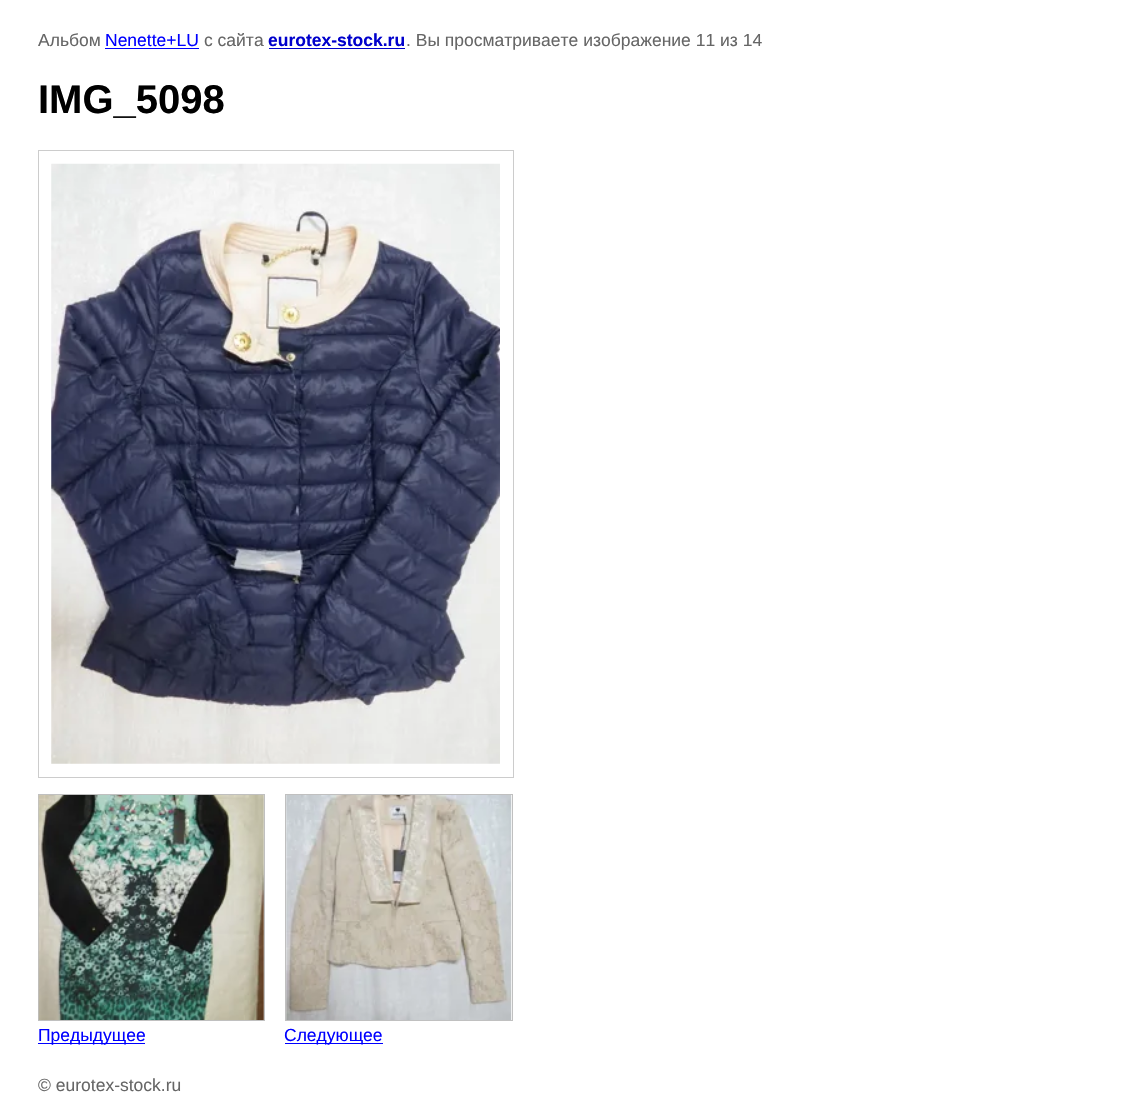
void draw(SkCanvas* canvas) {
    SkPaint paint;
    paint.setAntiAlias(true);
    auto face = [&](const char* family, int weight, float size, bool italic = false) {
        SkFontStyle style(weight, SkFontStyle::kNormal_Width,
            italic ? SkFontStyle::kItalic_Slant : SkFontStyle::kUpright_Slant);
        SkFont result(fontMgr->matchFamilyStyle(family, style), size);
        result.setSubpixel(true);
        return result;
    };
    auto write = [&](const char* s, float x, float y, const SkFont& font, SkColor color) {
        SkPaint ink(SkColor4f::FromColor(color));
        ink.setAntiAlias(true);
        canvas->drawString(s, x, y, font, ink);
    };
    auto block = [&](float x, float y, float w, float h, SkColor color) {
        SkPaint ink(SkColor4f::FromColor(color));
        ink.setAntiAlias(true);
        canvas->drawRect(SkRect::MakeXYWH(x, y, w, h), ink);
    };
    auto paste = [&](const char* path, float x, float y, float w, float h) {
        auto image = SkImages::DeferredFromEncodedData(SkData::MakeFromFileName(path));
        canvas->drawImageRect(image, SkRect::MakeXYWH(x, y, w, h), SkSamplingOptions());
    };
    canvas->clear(SK_ColorWHITE);
    auto kFont1 = face("Liberation Sans", 400, 17.5f);
    write("Альбом", 38, 46, kFont1, SkColorSetRGB(102, 102, 102));
    write("Nenette+LU", 105, 46, kFont1, SkColorSetRGB(0, 0, 255));
    block(105, 48, 94, 1, SkColorSetRGB(0, 0, 255));
    write("с сайта", 204, 46, kFont1, SkColorSetRGB(102, 102, 102));
    auto kFont2 = face("Liberation Sans", 700, 17.5f);
    write("eurotex-stock.ru", 268, 46, kFont2, SkColorSetRGB(0, 0, 204));
    block(269, 48, 136, 1, SkColorSetRGB(0, 0, 204));
    write(". Вы просматриваете изображение 11 из 14", 406, 46, kFont1, SkColorSetRGB(102, 102, 102));
    auto kFont3 = face("Liberation Sans", 700, 40);
    write("IMG_5098", 38, 113, kFont3, SK_ColorBLACK);
    paint.setStyle(SkPaint::kStroke_Style);
    paint.setStrokeWidth(1);
    paint.setColor(SkColorSetRGB(204, 204, 204));
    canvas->drawRect(SkRect::MakeXYWH(38.5f, 150.5f, 475, 627), paint);
    paste("pic1.png", 51, 163, 449, 601);
    paint.setColor(SkColorSetRGB(192, 192, 192));
    canvas->drawRect(SkRect::MakeXYWH(38.5f, 794.5f, 226, 226), paint);
    paste("pic2.png", 38, 795, 226, 225);
    block(38, 1043, 107, 1, SkColorSetRGB(0, 0, 255));
    write("Предыдущее", 38, 1041, kFont1, SkColorSetRGB(0, 0, 255));
    canvas->drawRect(SkRect::MakeXYWH(285.5f, 794.5f, 227, 226), paint);
    paste("pic3.png", 286, 795, 226, 225);
    block(285, 1043, 98, 1, SkColorSetRGB(0, 0, 255));
    write("Следующее", 284, 1041, kFont1, SkColorSetRGB(0, 0, 255));
    write("© eurotex-stock.ru", 38, 1091, kFont1, SkColorSetRGB(102, 102, 102));
}
